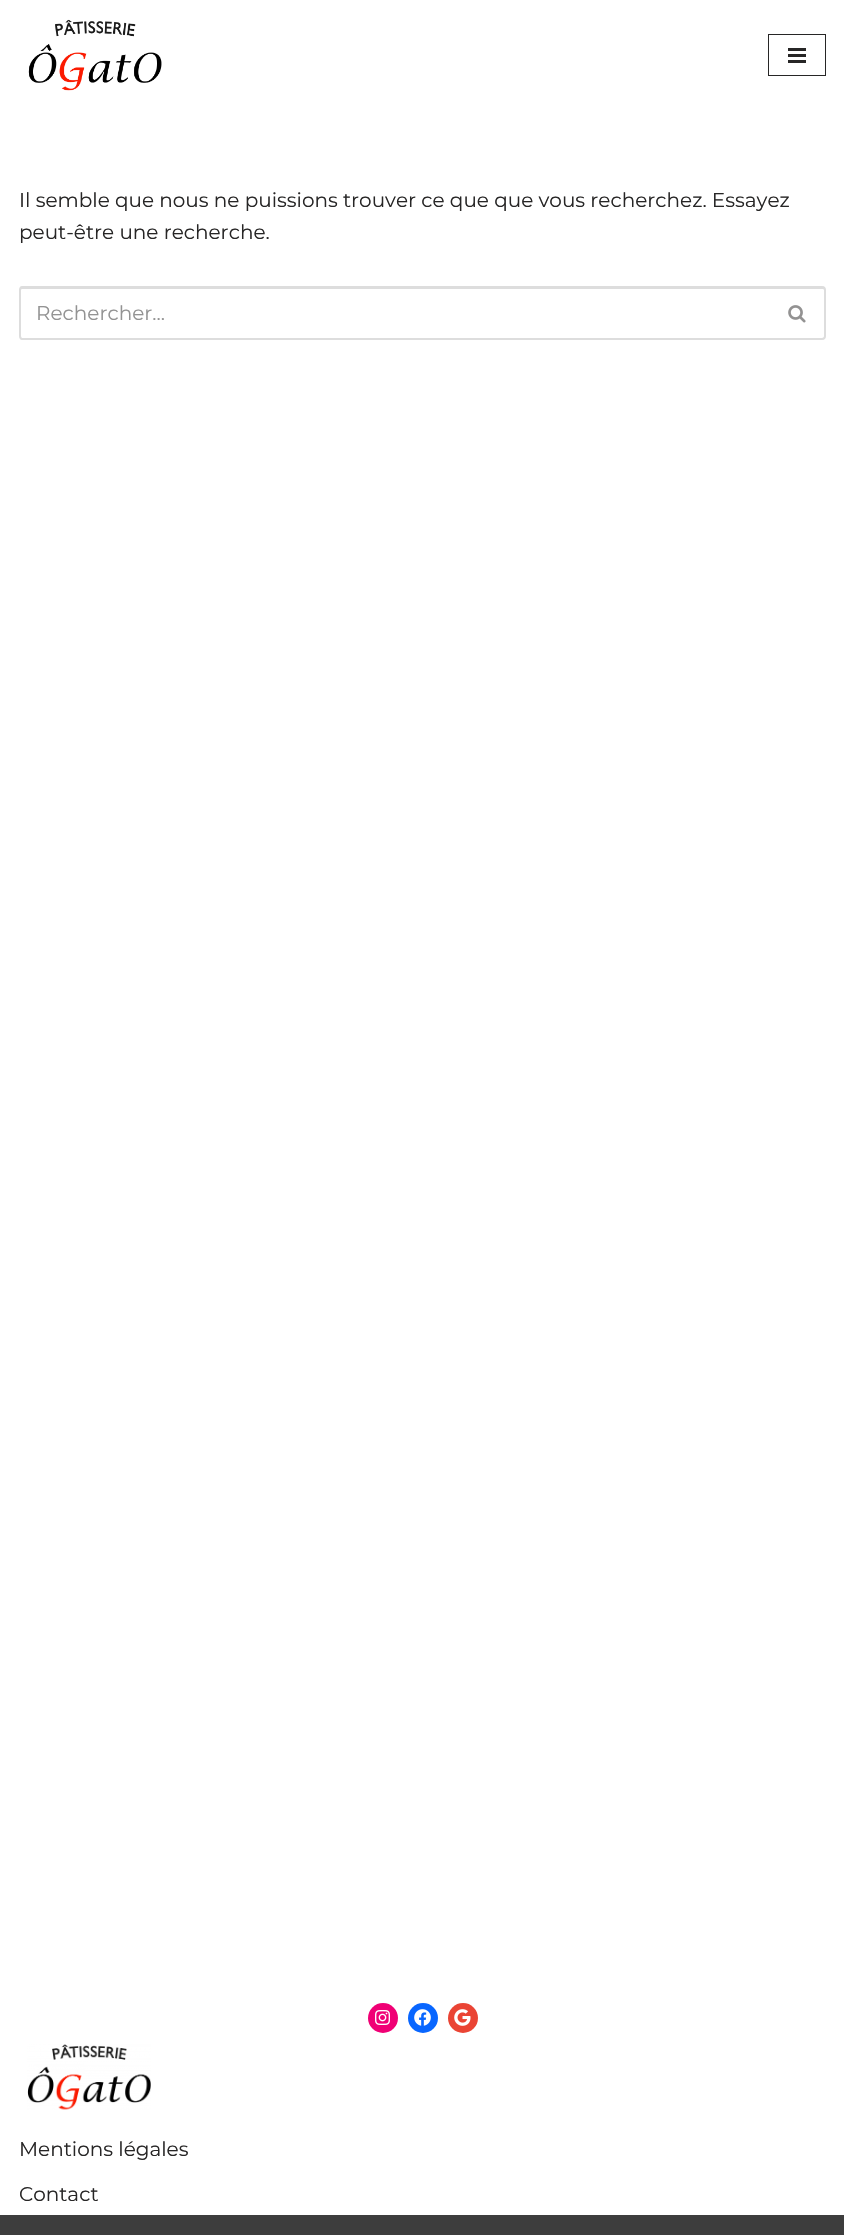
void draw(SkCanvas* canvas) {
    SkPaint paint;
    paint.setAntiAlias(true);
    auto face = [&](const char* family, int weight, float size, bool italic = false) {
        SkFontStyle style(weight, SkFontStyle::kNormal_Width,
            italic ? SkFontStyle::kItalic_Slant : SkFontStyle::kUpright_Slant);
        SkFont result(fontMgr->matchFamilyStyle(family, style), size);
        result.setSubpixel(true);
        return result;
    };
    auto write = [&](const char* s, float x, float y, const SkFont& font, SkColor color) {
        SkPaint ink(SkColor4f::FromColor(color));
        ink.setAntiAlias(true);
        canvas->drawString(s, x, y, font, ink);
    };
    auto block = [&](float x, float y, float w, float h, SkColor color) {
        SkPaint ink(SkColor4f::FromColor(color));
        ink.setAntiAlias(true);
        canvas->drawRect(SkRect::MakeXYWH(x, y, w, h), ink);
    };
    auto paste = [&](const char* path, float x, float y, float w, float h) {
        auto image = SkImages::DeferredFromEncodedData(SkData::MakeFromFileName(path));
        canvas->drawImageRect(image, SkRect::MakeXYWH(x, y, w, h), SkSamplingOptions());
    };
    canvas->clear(SK_ColorWHITE);
    paste("pic1.png", 28, 19, 134, 72);
    paint.setStyle(SkPaint::kStroke_Style);
    paint.setStrokeWidth(1);
    paint.setColor(SkColorSetRGB(39, 38, 38));
    canvas->drawRect(SkRect::MakeXYWH(768.5f, 34.5f, 57, 41), paint);
    block(788, 48, 18, 3, SkColorSetRGB(39, 38, 38));
    block(788, 54, 18, 3, SkColorSetRGB(39, 38, 38));
    block(788, 60, 18, 3, SkColorSetRGB(39, 38, 38));
    auto kFont1 = face("Montserrat", 400, 20);
    write("Il semble que nous ne puissions trouver ce que que vous recherchez. Essayez", 19, 207, kFont1, SkColorSetRGB(39, 38, 38));
    write("peut-être une recherche.", 19, 239, kFont1, SkColorSetRGB(39, 38, 38));
    paint.setStyle(SkPaint::kFill_Style);
    paint.setColor(SkColorSetRGB(221, 221, 221));
    canvas->drawPath(SkPathBuilder(SkPathFillType::kEvenOdd).moveTo(22, 286).lineTo(770, 286).lineTo(770, 340).lineTo(22, 340).cubicTo(20, 340, 19, 338, 19, 336).lineTo(19, 290).cubicTo(19, 288, 20, 286, 22, 286).close().moveTo(22, 289).lineTo(770, 289).lineTo(770, 338).lineTo(22, 338).cubicTo(22, 338, 21, 337, 21, 336).lineTo(21, 290).cubicTo(21, 289, 22, 289, 22, 289).close().detach(), paint);
    write("Rechercher...", 36, 320, kFont1, SkColorSetRGB(147, 147, 147));
    canvas->drawPath(SkPathBuilder(SkPathFillType::kEvenOdd).moveTo(770, 286).lineTo(822, 286).cubicTo(825, 286, 826, 288, 826, 290).lineTo(826, 336).cubicTo(826, 338, 825, 340, 822, 340).lineTo(770, 340).close().moveTo(770, 289).lineTo(822, 289).cubicTo(823, 289, 824, 289, 824, 290).lineTo(824, 336).cubicTo(824, 337, 823, 338, 822, 338).lineTo(770, 338).close().detach(), paint);
    paste("pic2.png", 788, 305, 18, 18);
    paint.setColor(SkColorSetRGB(240, 0, 117));
    canvas->drawCircle(383, 2018, 15, paint);
    paste("pic3.png", 375, 2010, 15, 15);
    paint.setColor(SkColorSetRGB(8, 102, 255));
    canvas->drawCircle(423, 2018, 15, paint);
    paste("pic4.png", 414, 2009, 17, 17);
    paint.setColor(SkColorSetRGB(234, 68, 52));
    canvas->drawCircle(463, 2018, 15, paint);
    paste("pic5.png", 454, 2009, 17, 17);
    paste("pic6.png", 27, 2044, 124, 66);
    write("Mentions légales", 19, 2156, kFont1, SkColorSetRGB(39, 38, 38));
    write("Contact", 19, 2201, kFont1, SkColorSetRGB(39, 38, 38));
    block(0, 2215, 844, 20, SkColorSetRGB(61, 61, 61));
}
